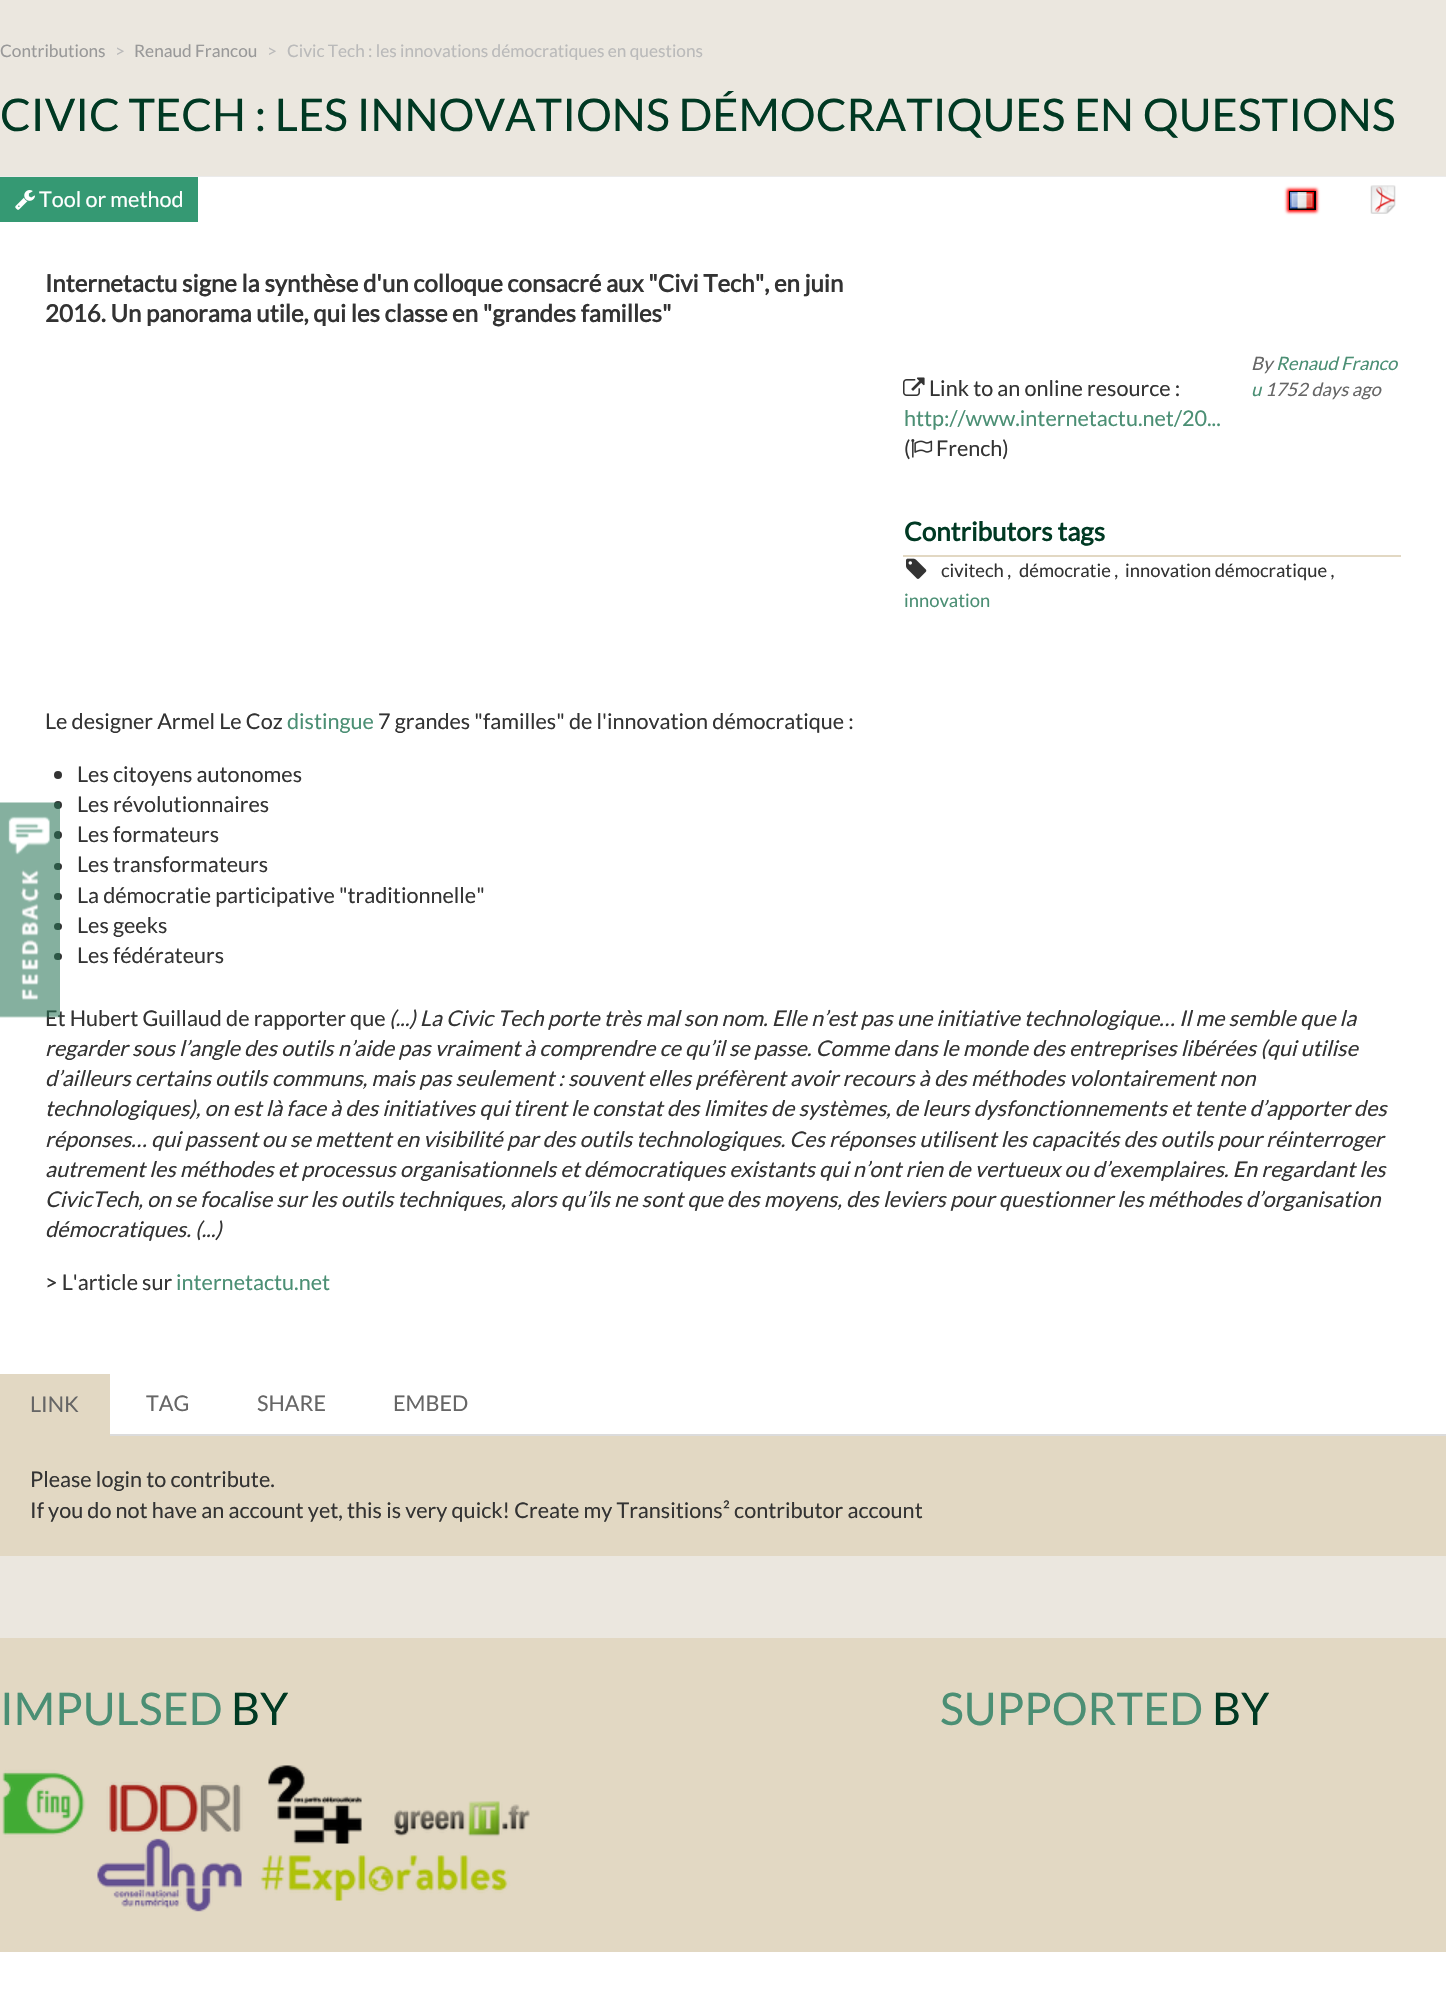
void draw(SkCanvas* canvas) {
    SkPaint paint;
    paint.setAntiAlias(true);
    auto face = [&](const char* family, int weight, float size, bool italic = false) {
        SkFontStyle style(weight, SkFontStyle::kNormal_Width,
            italic ? SkFontStyle::kItalic_Slant : SkFontStyle::kUpright_Slant);
        SkFont result(fontMgr->matchFamilyStyle(family, style), size);
        result.setSubpixel(true);
        return result;
    };
    auto write = [&](const char* s, float x, float y, const SkFont& font, SkColor color) {
        SkPaint ink(SkColor4f::FromColor(color));
        ink.setAntiAlias(true);
        canvas->drawString(s, x, y, font, ink);
    };
    auto block = [&](float x, float y, float w, float h, SkColor color) {
        SkPaint ink(SkColor4f::FromColor(color));
        ink.setAntiAlias(true);
        canvas->drawRect(SkRect::MakeXYWH(x, y, w, h), ink);
    };
    auto card = [&](float x, float y, float w, float h, float radius, SkColor color) {
        SkPaint ink(SkColor4f::FromColor(color));
        ink.setAntiAlias(true);
        canvas->drawRoundRect(SkRect::MakeXYWH(x, y, w, h), radius, radius, ink);
    };
    auto paste = [&](const char* path, float x, float y, float w, float h) {
        auto image = SkImages::DeferredFromEncodedData(SkData::MakeFromFileName(path));
        canvas->drawImageRect(image, SkRect::MakeXYWH(x, y, w, h), SkSamplingOptions());
    };
    canvas->clear(SkColorSetRGB(235, 231, 223));
    auto kFont1 = face("Lato", 400, 17.25f);
    write("Contributions", 0, 57, kFont1, SkColorSetRGB(153, 153, 153));
    write(">", 115, 57, kFont1, SkColorSetRGB(186, 186, 186));
    write("Renaud Francou", 134, 57, kFont1, SkColorSetRGB(153, 153, 153));
    write(">", 267, 57, kFont1, SkColorSetRGB(186, 186, 186));
    write("Civic Tech : les innovations démocratiques en questions", 287, 57, kFont1, SkColorSetRGB(186, 186, 186));
    block(0, 176, 1446, 1, SkColorSetRGB(235, 235, 235));
    auto kFont2 = face("Lato", 400, 45);
    write("CIVIC TECH : LES INNOVATIONS DÉMOCRATIQUES EN QUESTIONS", 0, 131, kFont2, SkColorSetRGB(0, 57, 35));
    block(0, 177, 1446, 1257, SK_ColorWHITE);
    block(0, 177, 198, 45, SkColorSetRGB(53, 153, 115));
    paste("pic1.png", 15, 190, 20, 20);
    auto kFont3 = face("Lato", 400, 21.6f);
    write("Tool or method", 39, 207, kFont3, SK_ColorWHITE);
    paint.setColor(SkColorSetRGB(255, 0, 0));
    paint.setMaskFilter(SkMaskFilter::MakeBlur(kNormal_SkBlurStyle, 1.5f));
    canvas->drawRect(SkRect::MakeXYWH(1287, 189, 30, 23), paint);
    paint.setMaskFilter(nullptr);
    paint.setStyle(SkPaint::kStroke_Style);
    paint.setStrokeWidth(2);
    paint.setColor(SK_ColorBLACK);
    canvas->drawRect(SkRect::MakeXYWH(1290, 192, 25, 17), paint);
    paste("pic2.png", 1290, 192, 24, 17);
    paste("pic3.png", 1370, 185, 26, 29);
    auto kFont4 = face("Lato", 700, 24);
    write("Internetactu signe la synthèse d'un colloque consacré aux \"Civi Tech\", en juin", 45, 292, kFont4, SkColorSetRGB(51, 51, 51));
    write("2016. Un panorama utile, qui les classe en \"grandes familles\"", 45, 322, kFont4, SkColorSetRGB(51, 51, 51));
    paste("pic4.png", 903, 377, 22, 19);
    write("Link to an online resource :", 929, 396, kFont3, SkColorSetRGB(51, 51, 51));
    write("http://www.internetactu.net/20...", 904, 426, kFont3, SkColorSetRGB(75, 143, 116));
    write("(", 904, 456, kFont3, SkColorSetRGB(51, 51, 51));
    paste("pic5.png", 911, 439, 22, 19);
    write("French)", 936, 456, kFont3, SkColorSetRGB(51, 51, 51));
    auto kFont5 = face("Lato", 400, 18.4f, true);
    write("By", 1251, 370, kFont5, SkColorSetRGB(102, 102, 102));
    write("Renaud Franco", 1276, 370, kFont5, SkColorSetRGB(75, 143, 116));
    write("u", 1251, 396, kFont5, SkColorSetRGB(75, 143, 116));
    write("1752 days ago", 1265, 396, kFont5, SkColorSetRGB(102, 102, 102));
    block(903, 555, 498, 2, SkColorSetRGB(226, 216, 195));
    auto kFont6 = face("Lato", 700, 26);
    write("Contributors tags", 904, 541, kFont6, SkColorSetRGB(0, 57, 35));
    paste("pic6.png", 906, 558, 21, 21);
    auto kFont7 = face("Lato", 400, 18.4f);
    write("civitech ,", 941, 577, kFont7, SkColorSetRGB(51, 51, 51));
    write("démocratie ,", 1019, 577, kFont7, SkColorSetRGB(51, 51, 51));
    write("innovation démocratique ,", 1125, 577, kFont7, SkColorSetRGB(51, 51, 51));
    write("innovation", 904, 607, kFont7, SkColorSetRGB(75, 143, 116));
    write("Le designer Armel Le Coz", 45, 729, kFont3, SkColorSetRGB(51, 51, 51));
    write("distingue", 287, 729, kFont3, SkColorSetRGB(75, 143, 116));
    write("7 grandes \"familles\" de l'innovation démocratique :", 378, 729, kFont3, SkColorSetRGB(51, 51, 51));
    paint.setStyle(SkPaint::kFill_Style);
    paint.setColor(SkColorSetRGB(51, 51, 51));
    canvas->drawCircle(58, 775, 4, paint);
    write("Les citoyens autonomes", 77, 782, kFont3, SkColorSetRGB(51, 51, 51));
    canvas->drawCircle(58, 805, 4, paint);
    write("Les révolutionnaires", 77, 812, kFont3, SkColorSetRGB(51, 51, 51));
    canvas->drawCircle(58, 835, 4, paint);
    write("Les formateurs", 77, 842, kFont3, SkColorSetRGB(51, 51, 51));
    card(54, 863, 8, 7, 3.5f, SkColorSetRGB(51, 51, 51));
    write("Les transformateurs", 77, 872, kFont3, SkColorSetRGB(51, 51, 51));
    card(54, 893, 8, 7, 3.5f, SkColorSetRGB(51, 51, 51));
    write("La démocratie participative \"traditionnelle\"", 77, 903, kFont3, SkColorSetRGB(51, 51, 51));
    card(54, 923, 8, 7, 3.5f, SkColorSetRGB(51, 51, 51));
    write("Les geeks", 77, 933, kFont3, SkColorSetRGB(51, 51, 51));
    card(54, 953, 8, 7, 3.5f, SkColorSetRGB(51, 51, 51));
    write("Les fédérateurs", 77, 963, kFont3, SkColorSetRGB(51, 51, 51));
    write("Et Hubert Guillaud de rapporter que", 45, 1026, kFont3, SkColorSetRGB(51, 51, 51));
    auto kFont8 = face("Lato", 400, 21.6f, true);
    write("(...) La Civic Tech porte très mal son nom. Elle n’est pas une initiative technologique… Il me semble que la", 389, 1026, kFont8, SkColorSetRGB(51, 51, 51));
    write("regarder sous l’angle des outils n’aide pas vraiment à comprendre ce qu’il se passe. Comme dans le monde des entreprises libérées (qui utilise", 45, 1056, kFont8, SkColorSetRGB(51, 51, 51));
    write("d’ailleurs certains outils communs, mais pas seulement : souvent elles préfèrent avoir recours à des méthodes volontairement non", 45, 1086, kFont8, SkColorSetRGB(51, 51, 51));
    write("technologiques), on est là face à des initiatives qui tirent le constat des limites de systèmes, de leurs dysfonctionnements et tente d’apporter des", 45, 1116, kFont8, SkColorSetRGB(51, 51, 51));
    write("réponses… qui passent ou se mettent en visibilité par des outils technologiques. Ces réponses utilisent les capacités des outils pour réinterroger", 45, 1147, kFont8, SkColorSetRGB(51, 51, 51));
    write("autrement les méthodes et processus organisationnels et démocratiques existants qui n’ont rien de vertueux ou d’exemplaires. En regardant les", 45, 1177, kFont8, SkColorSetRGB(51, 51, 51));
    write("CivicTech, on se focalise sur les outils techniques, alors qu’ils ne sont que des moyens, des leviers pour questionner les méthodes d’organisation", 45, 1207, kFont8, SkColorSetRGB(51, 51, 51));
    write("démocratiques. (...)", 45, 1237, kFont8, SkColorSetRGB(51, 51, 51));
    write("> L'article sur", 45, 1290, kFont3, SkColorSetRGB(51, 51, 51));
    write("internetactu.net", 176, 1290, kFont3, SkColorSetRGB(75, 143, 116));
    block(110, 1434, 1336, 2, SkColorSetRGB(220, 220, 220));
    block(0, 1374, 110, 62, SkColorSetRGB(226, 216, 195));
    write("LINK", 30, 1412, kFont3, SkColorSetRGB(102, 102, 102));
    write("TAG", 146, 1411, kFont3, SkColorSetRGB(102, 102, 102));
    write("SHARE", 257, 1411, kFont3, SkColorSetRGB(102, 102, 102));
    write("EMBED", 393, 1411, kFont3, SkColorSetRGB(102, 102, 102));
    block(0, 1436, 1446, 120, SkColorSetRGB(226, 216, 195));
    write("Please login to contribute.", 30, 1487, kFont3, SkColorSetRGB(51, 51, 51));
    write("If you do not have an account yet, this is very quick! Create my Transitions² contributor account", 30, 1518, kFont3, SkColorSetRGB(51, 51, 51));
    block(0, 1952, 1446, 54, SK_ColorWHITE);
    paste("pic7.png", 0, 802, 60, 216);
    block(0, 1638, 1446, 314, SkColorSetRGB(226, 216, 195));
    write("IMPULSED", 0, 1725, kFont2, SkColorSetRGB(75, 143, 116));
    write("BY", 231, 1725, kFont2, SkColorSetRGB(0, 57, 35));
    paste("pic8.png", 2, 1765, 528, 147);
    write("SUPPORTED", 940, 1725, kFont2, SkColorSetRGB(75, 143, 116));
    write("BY", 1212, 1725, kFont2, SkColorSetRGB(0, 57, 35));
}
